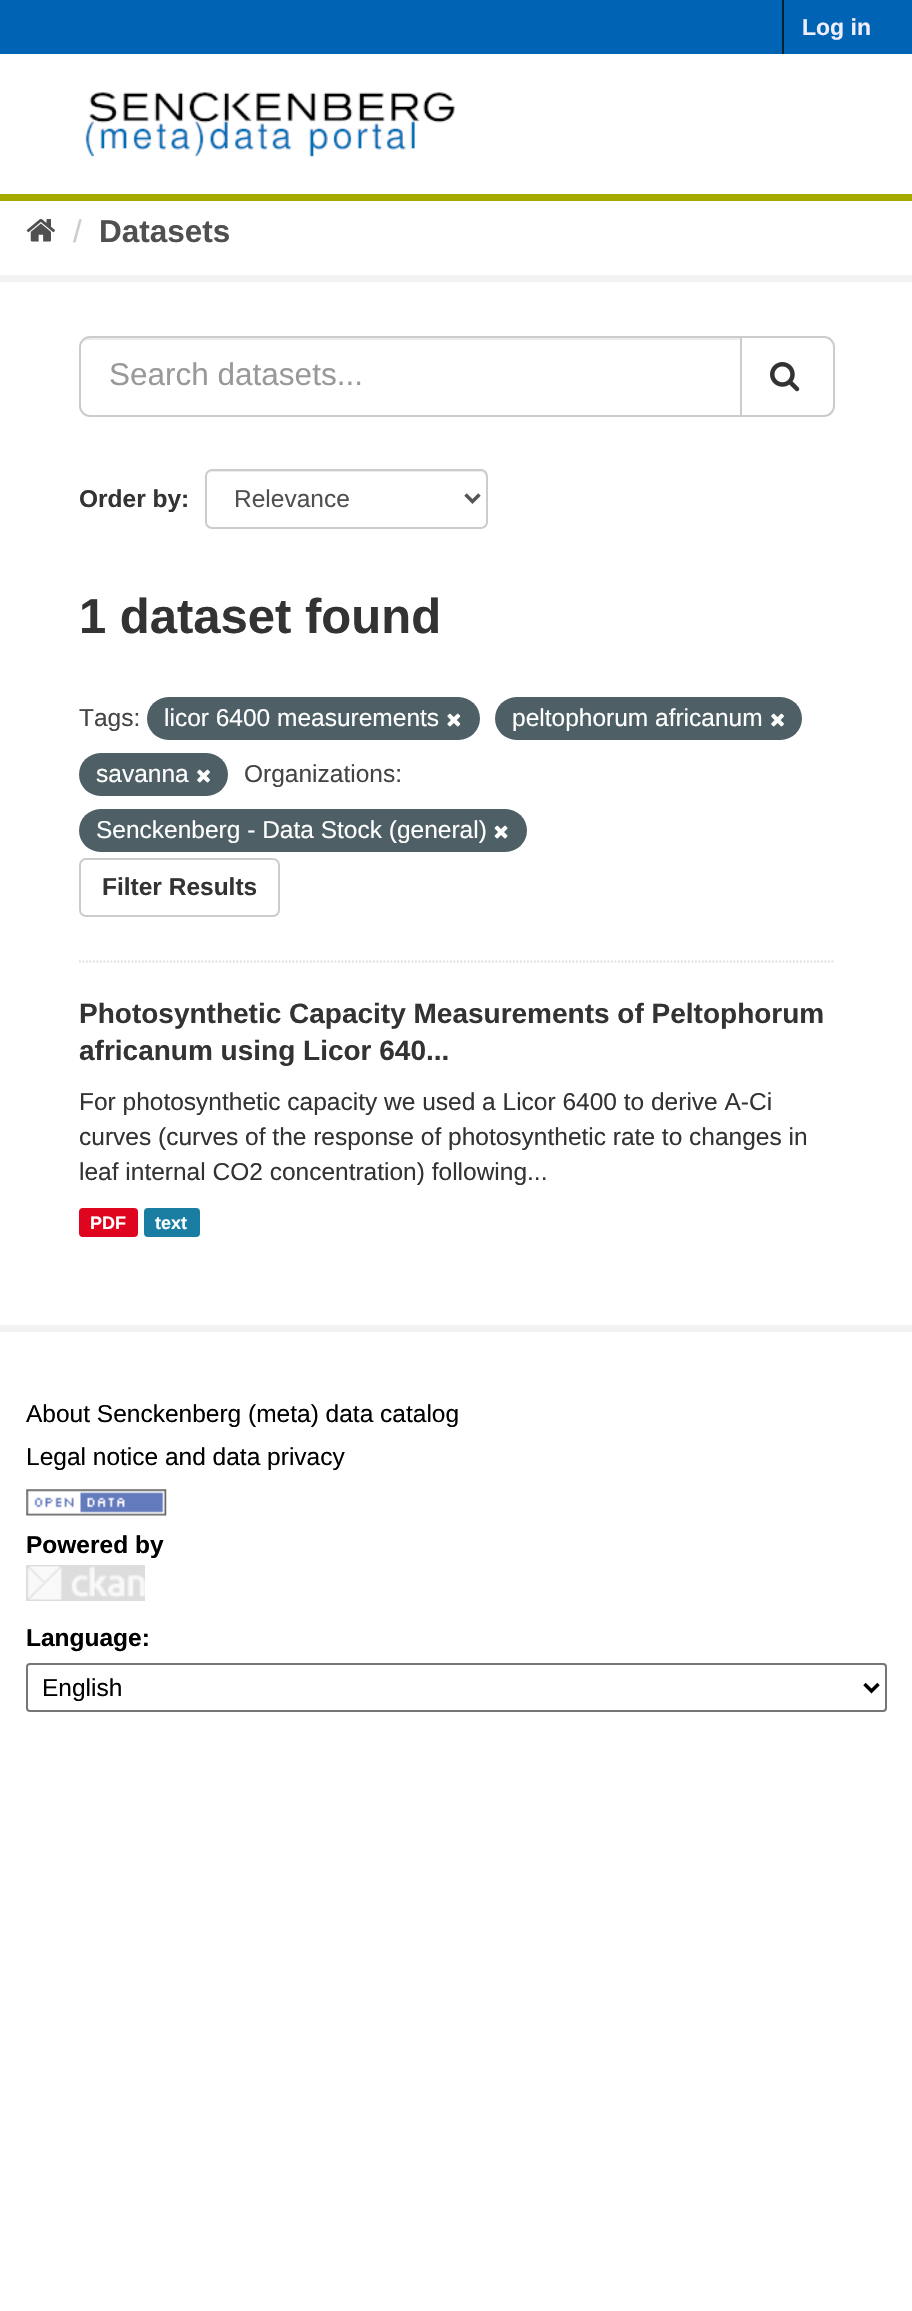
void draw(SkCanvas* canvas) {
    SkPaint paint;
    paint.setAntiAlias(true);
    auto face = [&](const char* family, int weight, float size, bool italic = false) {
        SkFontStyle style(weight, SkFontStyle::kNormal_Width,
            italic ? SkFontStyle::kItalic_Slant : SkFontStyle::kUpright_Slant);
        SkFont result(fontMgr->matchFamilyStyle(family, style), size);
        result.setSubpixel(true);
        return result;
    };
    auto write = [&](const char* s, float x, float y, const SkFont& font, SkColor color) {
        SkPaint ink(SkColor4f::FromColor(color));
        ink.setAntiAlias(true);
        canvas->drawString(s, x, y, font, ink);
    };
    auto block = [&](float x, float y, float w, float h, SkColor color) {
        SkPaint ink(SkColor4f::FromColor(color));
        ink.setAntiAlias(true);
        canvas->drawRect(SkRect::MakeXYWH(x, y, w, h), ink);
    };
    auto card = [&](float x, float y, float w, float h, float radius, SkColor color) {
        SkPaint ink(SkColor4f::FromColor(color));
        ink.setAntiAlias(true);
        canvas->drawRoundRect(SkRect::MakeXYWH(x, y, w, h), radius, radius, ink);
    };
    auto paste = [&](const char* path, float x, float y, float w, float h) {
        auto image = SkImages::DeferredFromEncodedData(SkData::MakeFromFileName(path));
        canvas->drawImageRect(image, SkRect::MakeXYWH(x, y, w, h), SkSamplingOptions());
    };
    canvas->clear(SK_ColorWHITE);
    block(0, 0, 912, 54, SkColorSetRGB(0, 99, 180));
    block(782, 0, 2, 54, SkColorSetRGB(0, 35, 46));
    auto kFont1 = face("Liberation Sans", 700, 23);
    write("Log in", 802, 35, kFont1, SkColorSetRGB(238, 238, 255));
    block(0, 194, 912, 7, SkColorSetRGB(164, 170, 0));
    paste("pic1.png", 85, 92, 370, 66);
    paste("pic2.png", 26, 219, 29, 23);
    auto kFont2 = face("Liberation Sans", 400, 31.5f);
    write("/", 73, 242, kFont2, SkColorSetRGB(204, 204, 204));
    auto kFont3 = face("Liberation Sans", 700, 31.5f);
    write("Datasets", 99, 242, kFont3, SkColorSetRGB(80, 80, 80));
    paint.setStyle(SkPaint::kStroke_Style);
    paint.setStrokeWidth(7);
    paint.setColor(SkColorSetRGB(242, 242, 242));
    canvas->drawRect(SkRect::MakeXYWH(-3.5f, 278.5f, 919, 1050), paint);
    paint.setStrokeWidth(1.8f);
    paint.setColor(SkColorSetRGB(221, 221, 221));
    paint.setPathEffect(SkDashPathEffect::Make({{1.75f, 1.75f}}, 0));
    canvas->drawPath(SkPathBuilder().moveTo(79, 961.5f).lineTo(835, 961.5f).detach(), paint);
    paint.setPathEffect(nullptr);
    paint.setStyle(SkPaint::kFill_Style);
    paint.setColor(SkColorSetRGB(236, 236, 236));
    canvas->drawPath(SkPathBuilder().moveTo(89, 340).lineTo(740, 340).lineTo(740, 338).lineTo(90, 338).cubicTo(87, 338, 84, 340, 82, 343).cubicTo(84, 341, 86, 340, 89, 340).close().detach(), paint);
    paint.setStyle(SkPaint::kStroke_Style);
    paint.setStrokeWidth(2);
    paint.setColor(SkColorSetRGB(204, 204, 204));
    canvas->drawPath(SkPathBuilder().moveTo(90, 337).lineTo(741, 337).lineTo(741, 416).lineTo(90, 416).cubicTo(84.5f, 416, 80, 411.5f, 80, 406).lineTo(80, 347).cubicTo(80, 341.5f, 84.5f, 337, 90, 337).close().detach(), paint);
    write("Search datasets...", 109, 385, kFont2, SkColorSetRGB(153, 153, 153));
    paint.setStyle(SkPaint::kFill_Style);
    paint.setColor(SK_ColorWHITE);
    canvas->drawPath(SkPathBuilder().moveTo(741, 337).lineTo(824, 337).cubicTo(829.5f, 337, 834, 341.5f, 834, 347).lineTo(834, 406).cubicTo(834, 411.5f, 829.5f, 416, 824, 416).lineTo(741, 416).close().detach(), paint);
    paint.setStyle(SkPaint::kStroke_Style);
    paint.setColor(SkColorSetRGB(204, 204, 204));
    canvas->drawPath(SkPathBuilder().moveTo(741, 337).lineTo(824, 337).cubicTo(829.5f, 337, 834, 341.5f, 834, 347).lineTo(834, 406).cubicTo(834, 411.5f, 829.5f, 416, 824, 416).lineTo(741, 416).close().detach(), paint);
    paste("pic3.png", 770, 362, 30, 30);
    auto kFont4 = face("Liberation Sans", 700, 24.5f);
    write("Order by:", 79, 507, kFont4, SkColorSetRGB(51, 51, 51));
    paint.setStyle(SkPaint::kFill_Style);
    paint.setColor(SkColorSetRGB(236, 236, 236));
    canvas->drawPath(SkPathBuilder().moveTo(212, 472).lineTo(481, 472).cubicTo(484, 472, 486, 475, 486, 478).lineTo(486, 523).lineTo(485, 526).cubicTo(486, 525, 487, 523, 487, 522).lineTo(487, 476).cubicTo(487, 473, 485, 471, 482, 471).lineTo(212, 471).cubicTo(210, 471, 208, 473, 207, 475).cubicTo(208, 473, 210, 472, 212, 472).close().detach(), paint);
    paint.setStyle(SkPaint::kStroke_Style);
    paint.setColor(SkColorSetRGB(204, 204, 204));
    canvas->drawRoundRect(SkRect::MakeXYWH(206, 470, 281, 58), 6, 6, paint);
    paint.setStrokeWidth(3.5f);
    paint.setColor(SkColorSetRGB(85, 85, 85));
    canvas->drawPath(SkPathBuilder().moveTo(465.5f, 494.5f).lineTo(472.5f, 501.5f).lineTo(479.5f, 494.5f).detach(), paint);
    auto kFont5 = face("Liberation Sans", 400, 24.5f);
    write("Relevance", 234, 507, kFont5, SkColorSetRGB(80, 80, 80));
    auto kFont6 = face("Liberation Sans", 700, 49);
    write("1 dataset found", 79, 633, kFont6, SkColorSetRGB(51, 51, 51));
    write("Tags:", 79, 726, kFont5, SkColorSetRGB(68, 68, 68));
    card(147, 697, 333, 43, 21.5f, SkColorSetRGB(78, 95, 101));
    write("licor 6400 measurements", 164, 726, kFont5, SK_ColorWHITE);
    paste("pic4.png", 447, 713, 14, 14);
    card(495, 697, 307, 43, 21.5f, SkColorSetRGB(78, 95, 101));
    write("peltophorum africanum", 512, 726, kFont5, SK_ColorWHITE);
    paste("pic5.png", 771, 713, 13, 14);
    card(79, 753, 149, 43, 21.5f, SkColorSetRGB(78, 95, 101));
    write("savanna", 96, 782, kFont5, SK_ColorWHITE);
    paste("pic5.png", 197, 769, 13, 14);
    write("Organizations:", 244, 782, kFont5, SkColorSetRGB(68, 68, 68));
    card(79, 809, 448, 43, 21.5f, SkColorSetRGB(78, 95, 101));
    write("Senckenberg - Data Stock (general)", 96, 838, kFont5, SK_ColorWHITE);
    paste("pic6.png", 494, 825, 14, 14);
    paint.setStrokeWidth(2);
    paint.setColor(SkColorSetRGB(204, 204, 204));
    canvas->drawRoundRect(SkRect::MakeXYWH(80, 859, 199, 57), 6, 6, paint);
    write("Filter Results", 102, 895, kFont4, SkColorSetRGB(51, 51, 51));
    auto kFont7 = face("Liberation Sans", 700, 28);
    write("Photosynthetic Capacity Measurements of Peltophorum", 79, 1023, kFont7, SkColorSetRGB(51, 51, 51));
    write("africanum using Licor 640...", 79, 1060, kFont7, SkColorSetRGB(51, 51, 51));
    write("For photosynthetic capacity we used a Licor 6400 to derive A-Ci", 79, 1110, kFont5, SkColorSetRGB(51, 51, 51));
    write("curves (curves of the response of photosynthetic rate to changes in", 79, 1145, kFont5, SkColorSetRGB(51, 51, 51));
    write("leaf internal CO2 concentration) following...", 79, 1180, kFont5, SkColorSetRGB(51, 51, 51));
    card(79, 1208, 59, 29, 4, SkColorSetRGB(224, 5, 30));
    auto kFont8 = face("Liberation Sans", 700, 18);
    write("PDF", 90, 1229, kFont8, SK_ColorWHITE);
    card(144, 1208, 56, 29, 4, SkColorSetRGB(26, 126, 163));
    write("text", 155, 1229, kFont8, SK_ColorWHITE);
    write("About Senckenberg (meta) data catalog", 26, 1422, kFont5, SK_ColorBLACK);
    write("Legal notice and data privacy", 26, 1465, kFont5, SK_ColorBLACK);
    paste("pic7.png", 26, 1489, 141, 27);
    write("Powered by", 26, 1553, kFont4, SK_ColorBLACK);
    block(26, 1565, 119, 36, SkColorSetRGB(221, 221, 221));
    paste("pic8.png", 27, 1566, 118, 34);
    write("Language:", 26, 1646, kFont4, SK_ColorBLACK);
    paint.setColor(SkColorSetRGB(118, 118, 118));
    canvas->drawRoundRect(SkRect::MakeXYWH(27, 1664, 859, 47), 3, 3, paint);
    paint.setStrokeWidth(3.5f);
    paint.setColor(SK_ColorBLACK);
    canvas->drawPath(SkPathBuilder().moveTo(864.5f, 1684).lineTo(871.5f, 1691).lineTo(878.5f, 1684).detach(), paint);
    write("English", 42, 1696, kFont5, SK_ColorBLACK);
}
